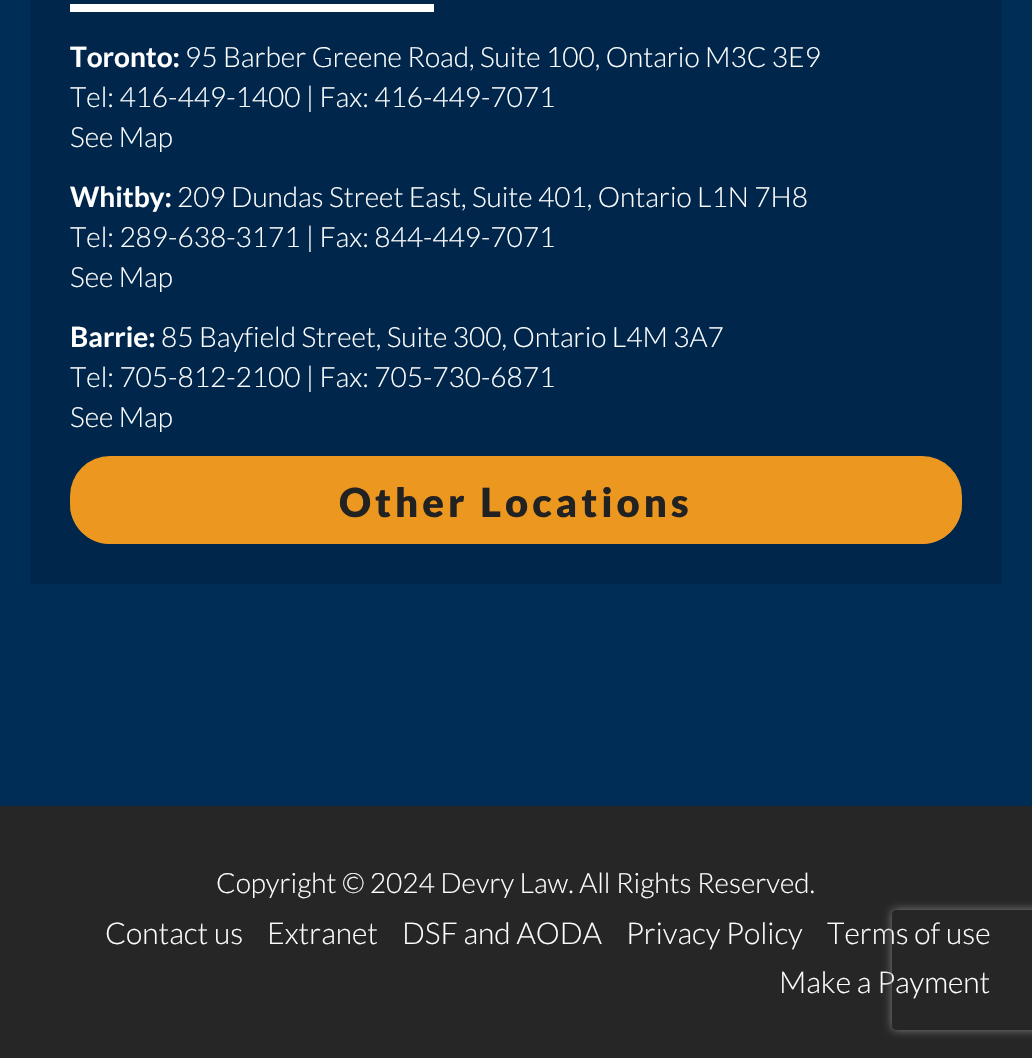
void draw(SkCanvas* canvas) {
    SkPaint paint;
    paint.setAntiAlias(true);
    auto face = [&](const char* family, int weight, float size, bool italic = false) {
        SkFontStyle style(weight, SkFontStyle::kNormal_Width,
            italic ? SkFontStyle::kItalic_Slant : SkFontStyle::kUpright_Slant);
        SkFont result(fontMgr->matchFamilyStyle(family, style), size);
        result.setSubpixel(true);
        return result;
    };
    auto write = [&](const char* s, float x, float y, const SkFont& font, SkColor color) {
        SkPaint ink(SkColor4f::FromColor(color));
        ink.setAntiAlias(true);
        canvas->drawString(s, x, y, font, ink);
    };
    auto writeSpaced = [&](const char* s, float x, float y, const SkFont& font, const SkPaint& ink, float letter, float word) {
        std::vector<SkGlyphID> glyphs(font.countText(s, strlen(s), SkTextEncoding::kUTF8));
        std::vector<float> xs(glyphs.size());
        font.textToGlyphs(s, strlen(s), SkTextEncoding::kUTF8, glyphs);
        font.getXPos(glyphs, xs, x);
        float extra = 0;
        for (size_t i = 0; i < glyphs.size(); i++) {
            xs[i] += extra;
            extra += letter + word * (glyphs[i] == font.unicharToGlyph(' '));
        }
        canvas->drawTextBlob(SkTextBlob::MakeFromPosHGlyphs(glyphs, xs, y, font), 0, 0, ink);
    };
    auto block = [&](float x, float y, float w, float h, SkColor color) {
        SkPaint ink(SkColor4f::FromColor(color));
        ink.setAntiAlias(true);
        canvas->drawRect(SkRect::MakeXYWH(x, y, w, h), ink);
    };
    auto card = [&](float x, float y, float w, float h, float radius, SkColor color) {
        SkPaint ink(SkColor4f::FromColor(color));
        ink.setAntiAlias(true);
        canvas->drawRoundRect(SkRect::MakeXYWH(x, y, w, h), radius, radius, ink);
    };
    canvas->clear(SkColorSetRGB(0, 45, 86));
    block(30, 0, 972, 584, SkColorSetRGB(0, 39, 75));
    block(70, 4, 364, 8, SK_ColorWHITE);
    auto kFont1 = face("Lato", 700, 28);
    write("Toronto:", 70, 67, kFont1, SK_ColorWHITE);
    auto kFont2 = face("Lato", 300, 28);
    write("95 Barber Greene Road, Suite 100, Ontario M3C 3E9", 185, 67, kFont2, SK_ColorWHITE);
    write("Tel: 416-449-1400 | Fax: 416-449-7071", 70, 107, kFont2, SK_ColorWHITE);
    write("See Map", 70, 147, kFont2, SK_ColorWHITE);
    write("Whitby:", 70, 207, kFont1, SK_ColorWHITE);
    write("209 Dundas Street East, Suite 401, Ontario L1N 7H8", 177, 207, kFont2, SK_ColorWHITE);
    write("Tel: 289-638-3171 | Fax: 844-449-7071", 70, 247, kFont2, SK_ColorWHITE);
    write("See Map", 70, 287, kFont2, SK_ColorWHITE);
    write("Barrie:", 70, 347, kFont1, SK_ColorWHITE);
    write("85 Bayfield Street, Suite 300, Ontario L4M 3A7", 161, 347, kFont2, SK_ColorWHITE);
    write("Tel: 705-812-2100 | Fax: 705-730-6871", 70, 387, kFont2, SK_ColorWHITE);
    write("See Map", 70, 427, kFont2, SK_ColorWHITE);
    card(70, 456, 892, 88, 40, SkColorSetRGB(236, 151, 31));
    paint.setColor(SkColorSetRGB(236, 151, 31));
    canvas->drawPath(SkPathBuilder().moveTo(70, 500).lineTo(70, 504).cubicTo(70, 526, 88, 544, 110, 544).lineTo(922, 544).cubicTo(944, 544, 962, 526, 962, 504).lineTo(962, 500).cubicTo(962, 522, 944, 540, 922, 540).lineTo(110, 540).cubicTo(88, 540, 70, 522, 70, 500).close().detach(), paint);
    auto kFont3 = face("Lato", 900, 40);
    paint.setColor(SkColorSetRGB(34, 34, 34));
    writeSpaced("Other Locations", 339, 517, kFont3, paint, 4, 0);
    block(0, 806, 1032, 252, SkColorSetRGB(38, 38, 38));
    write("Copyright © 2024 Devry Law. All Rights Reserved.", 216, 893, kFont2, SK_ColorWHITE);
    auto kFont4 = face("Lato", 300, 30);
    write("Contact us", 105, 944, kFont4, SK_ColorWHITE);
    write("Extranet", 267, 944, kFont4, SK_ColorWHITE);
    write("DSF and AODA", 402, 944, kFont4, SK_ColorWHITE);
    write("Privacy Policy", 626, 944, kFont4, SK_ColorWHITE);
    write("Terms of use", 827, 944, kFont4, SK_ColorWHITE);
    write("Make a Payment", 779, 993, kFont4, SK_ColorWHITE);
    canvas->save();
    canvas->clipPath(SkPathBuilder(SkPathFillType::kEvenOdd).moveTo(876, 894).lineTo(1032, 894).lineTo(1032, 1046).lineTo(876, 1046).close().moveTo(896, 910).lineTo(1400, 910).cubicTo(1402, 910, 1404, 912, 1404, 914).lineTo(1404, 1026).cubicTo(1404, 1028, 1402, 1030, 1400, 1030).lineTo(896, 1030).cubicTo(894, 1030, 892, 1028, 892, 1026).lineTo(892, 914).cubicTo(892, 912, 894, 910, 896, 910).close().detach(), true);
    paint.setColor(SkColorSetRGB(128, 128, 128));
    paint.setMaskFilter(SkMaskFilter::MakeBlur(kNormal_SkBlurStyle, 5));
    canvas->drawRoundRect(SkRect::MakeXYWH(892, 910, 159, 120), 4, 4, paint);
    paint.setMaskFilter(nullptr);
    canvas->restore();
}
